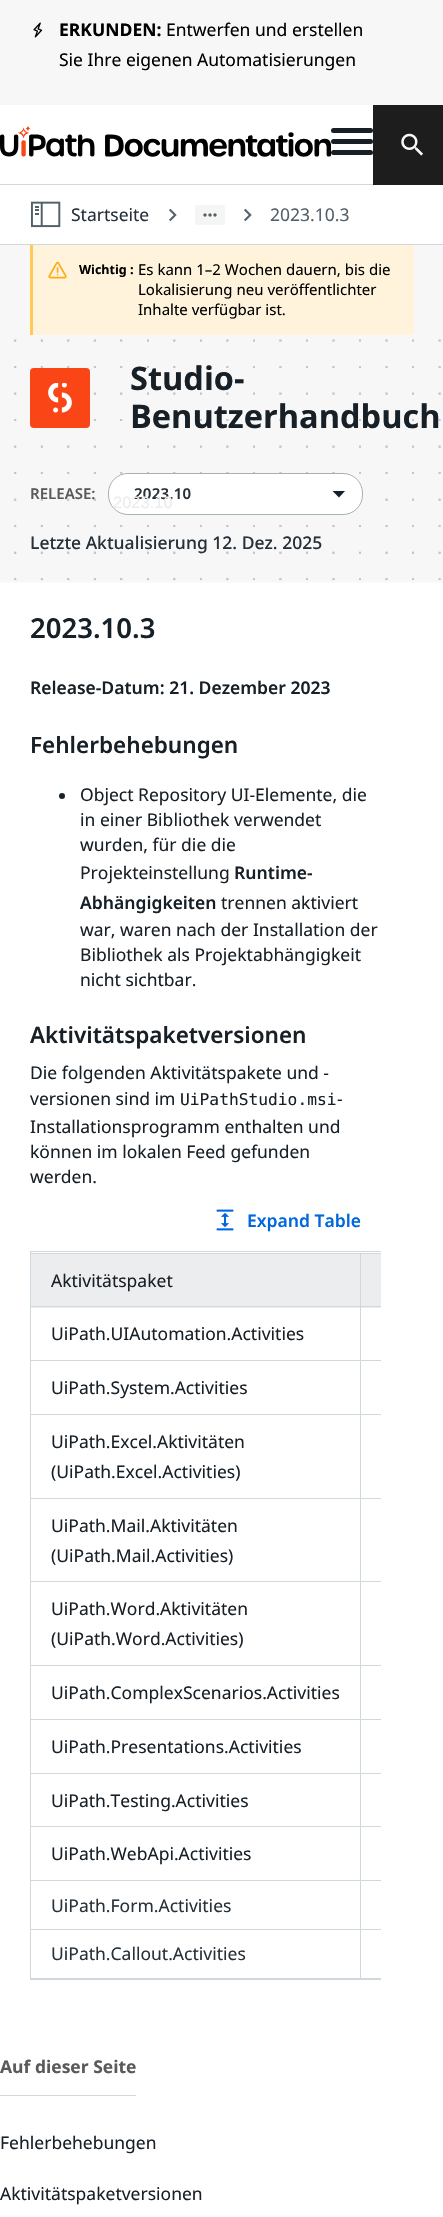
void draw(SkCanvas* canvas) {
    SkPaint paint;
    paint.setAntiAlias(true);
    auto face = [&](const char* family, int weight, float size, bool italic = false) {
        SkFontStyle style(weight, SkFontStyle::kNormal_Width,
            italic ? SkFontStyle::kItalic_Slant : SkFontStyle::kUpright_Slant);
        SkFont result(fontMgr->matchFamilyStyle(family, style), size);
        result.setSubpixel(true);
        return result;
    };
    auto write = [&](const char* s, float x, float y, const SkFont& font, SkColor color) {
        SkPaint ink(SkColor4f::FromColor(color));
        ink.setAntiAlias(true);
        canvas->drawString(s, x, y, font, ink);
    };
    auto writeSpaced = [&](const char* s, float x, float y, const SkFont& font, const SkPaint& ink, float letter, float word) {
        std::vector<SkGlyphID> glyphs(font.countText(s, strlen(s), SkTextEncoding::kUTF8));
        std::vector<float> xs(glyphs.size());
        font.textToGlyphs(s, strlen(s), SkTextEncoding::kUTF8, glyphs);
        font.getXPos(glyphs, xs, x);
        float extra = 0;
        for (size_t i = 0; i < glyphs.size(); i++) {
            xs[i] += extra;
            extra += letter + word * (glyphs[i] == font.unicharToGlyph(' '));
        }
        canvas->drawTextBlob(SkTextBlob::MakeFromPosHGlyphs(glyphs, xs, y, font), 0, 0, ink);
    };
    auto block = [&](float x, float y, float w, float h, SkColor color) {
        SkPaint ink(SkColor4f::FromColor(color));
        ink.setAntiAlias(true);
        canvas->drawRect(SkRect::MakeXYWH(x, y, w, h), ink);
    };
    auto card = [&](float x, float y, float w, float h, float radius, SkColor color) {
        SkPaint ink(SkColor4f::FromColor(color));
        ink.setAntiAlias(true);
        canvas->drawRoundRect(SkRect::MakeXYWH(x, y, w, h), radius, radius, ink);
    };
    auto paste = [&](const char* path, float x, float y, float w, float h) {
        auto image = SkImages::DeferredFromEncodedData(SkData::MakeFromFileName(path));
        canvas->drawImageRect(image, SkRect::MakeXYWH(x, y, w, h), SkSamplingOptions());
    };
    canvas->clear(SK_ColorWHITE);
    block(0, 0, 443, 105, SkColorSetRGB(247, 247, 247));
    paste("pic1.png", 33, 22, 10, 16);
    auto kFont1 = face("Noto Sans", 700, 17.5f);
    write("ERKUNDEN:", 59, 36, kFont1, SK_ColorBLACK);
    auto kFont2 = face("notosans", 400, 17.5f);
    write("Entwerfen und erstellen", 166, 36, kFont2, SK_ColorBLACK);
    write("Sie Ihre eigenen Automatisierungen", 59, 66, kFont2, SK_ColorBLACK);
    block(0, 184, 373, 1, SkColorSetRGB(207, 216, 221));
    paste("pic2.png", 0, 126, 331, 31);
    card(331, 128, 42, 5, 2.5f, SkColorSetRGB(24, 32, 39));
    card(331, 139, 42, 5, 2.5f, SkColorSetRGB(24, 32, 39));
    card(331, 150, 42, 5, 2.5f, SkColorSetRGB(24, 32, 39));
    block(373, 105, 70, 80, SkColorSetRGB(29, 29, 30));
    paste("pic3.png", 401, 133, 22, 23);
    block(0, 244, 443, 1, SkColorSetRGB(207, 216, 221));
    paste("pic4.png", 30, 201, 31, 27);
    write("Startseite", 71, 221, kFont2, SkColorSetRGB(39, 49, 57));
    paste("pic5.png", 169, 208, 8, 14);
    card(195, 205, 30, 20, 2.5f, SkColorSetRGB(245, 245, 245));
    paste("pic6.png", 203, 213, 14, 4);
    paste("pic5.png", 244, 208, 8, 14);
    write("2023.10.3", 270, 221, kFont2, SkColorSetRGB(82, 96, 105));
    block(0, 245, 443, 90, SkColorSetRGB(247, 247, 247));
    block(33, 245, 381, 90, SkColorSetRGB(255, 243, 219));
    block(30, 245, 3, 90, SkColorSetRGB(255, 202, 85));
    paste("pic7.png", 48, 261, 19, 18);
    auto kFont3 = face("Noto Sans", 700, 12.5f);
    write("Wichtig :", 79, 274, kFont3, SK_ColorBLACK);
    auto kFont4 = face("notosans", 400, 15);
    write("Es kann 1–2 Wochen dauern, bis die", 138, 275, kFont4, SK_ColorBLACK);
    write("Lokalisierung neu veröffentlichter", 138, 295, kFont4, SK_ColorBLACK);
    write("Inhalte verfügbar ist.", 138, 315, kFont4, SK_ColorBLACK);
    paste("pic8.png", 0, 335, 443, 248);
    card(30, 368, 60, 60, 4, SkColorSetRGB(250, 70, 22));
    paste("pic9.png", 48, 383, 24, 30);
    auto kFont5 = face("Noto Sans", 700, 32.5f);
    write("Studio-", 130, 390, kFont5, SkColorSetRGB(24, 32, 39));
    write("Benutzerhandbuch", 130, 428, kFont5, SkColorSetRGB(24, 32, 39));
    auto kFont6 = face("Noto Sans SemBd", 600, 15);
    write("RELEASE:", 30, 499, kFont6, SkColorSetRGB(89, 90, 92));
    paint.setColor(SK_ColorWHITE);
    canvas->drawRoundRect(SkRect::MakeXYWH(108.5f, 473.5f, 254, 41), 19.5f, 19.5f, paint);
    paint.setStyle(SkPaint::kStroke_Style);
    paint.setStrokeWidth(1);
    paint.setColor(SkColorSetRGB(164, 177, 184));
    canvas->drawRoundRect(SkRect::MakeXYWH(108.5f, 473.5f, 254, 41), 19.5f, 19.5f, paint);
    paint.setStyle(SkPaint::kFill_Style);
    paint.setColor(SkColorSetRGB(39, 49, 57));
    writeSpaced("2023.10", 134, 499, kFont6, paint, 0.25f, 0);
    paint.setColor(SkColorSetRGB(24, 32, 39));
    canvas->drawPath(SkPathBuilder().moveTo(332.5f, 491).lineTo(339, 497.5f).lineTo(345, 491).close().detach(), paint);
    auto kFont7 = face("Liberation Sans", 400, 16.5f);
    write("2023.10", 113, 508, kFont7, SkColorSetRGB(235, 236, 237));
    auto kFont8 = face("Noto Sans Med", 500, 17.5f);
    write("Letzte Aktualisierung 12. Dez. 2025", 30, 549, kFont8, SkColorSetRGB(39, 49, 57));
    auto kFont9 = face("Noto Sans SemBd", 600, 27.5f);
    write("2023.10.3", 30, 638, kFont9, SkColorSetRGB(24, 32, 39));
    auto kFont10 = face("Noto Sans SemBd", 600, 17.5f);
    write("Release-Datum: 21. Dezember 2023", 30, 694, kFont10, SkColorSetRGB(24, 32, 39));
    auto kFont11 = face("Noto Sans SemBd", 600, 22.5f);
    write("Fehlerbehebungen", 30, 753, kFont11, SkColorSetRGB(24, 32, 39));
    canvas->drawCircle(62, 796, 3, paint);
    write("Object Repository UI-Elemente, die", 80, 801, kFont2, SkColorSetRGB(24, 32, 39));
    write("in einer Bibliothek verwendet", 80, 826, kFont2, SkColorSetRGB(24, 32, 39));
    write("wurden, für die die", 80, 851, kFont2, SkColorSetRGB(24, 32, 39));
    write("Projekteinstellung", 80, 879, kFont2, SkColorSetRGB(24, 32, 39));
    write("Runtime-", 234, 879, kFont10, SkColorSetRGB(24, 32, 39));
    write("Abhängigkeiten", 80, 909, kFont10, SkColorSetRGB(24, 32, 39));
    write("trennen aktiviert", 221, 909, kFont2, SkColorSetRGB(24, 32, 39));
    write("war, waren nach der Installation der", 80, 936, kFont2, SkColorSetRGB(24, 32, 39));
    write("Bibliothek als Projektabhängigkeit", 80, 961, kFont2, SkColorSetRGB(24, 32, 39));
    write("nicht sichtbar.", 80, 986, kFont2, SkColorSetRGB(24, 32, 39));
    write("Aktivitätspaketversionen", 30, 1043, kFont11, SkColorSetRGB(24, 32, 39));
    write("Die folgenden Aktivitätspakete und -", 30, 1079, kFont2, SkColorSetRGB(24, 32, 39));
    write("versionen sind im", 30, 1105, kFont2, SkColorSetRGB(24, 32, 39));
    auto kFont12 = face("DejaVu Sans Mono", 400, 16.25f);
    write("UiPathStudio.msi", 180, 1105, kFont12, SkColorSetRGB(24, 32, 39));
    write("-", 337, 1105, kFont2, SkColorSetRGB(24, 32, 39));
    write("Installationsprogramm enthalten und", 30, 1133, kFont2, SkColorSetRGB(24, 32, 39));
    write("können im lokalen Feed gefunden", 30, 1158, kFont2, SkColorSetRGB(24, 32, 39));
    write("werden.", 30, 1183, kFont2, SkColorSetRGB(24, 32, 39));
    paste("pic10.png", 216, 1209, 18, 22);
    write("Expand Table", 247, 1227, kFont10, SkColorSetRGB(0, 103, 223));
    canvas->save();
    canvas->clipRect(SkRect::MakeXYWH(30, 1245, 351, 735));
    paint.setStyle(SkPaint::kStroke_Style);
    paint.setColor(SkColorSetRGB(207, 216, 221));
    canvas->drawRect(SkRect::MakeXYWH(30.5f, 1251.5f, 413, 728), paint);
    canvas->restore();
    block(31, 1254, 350, 54, SkColorSetRGB(236, 237, 238));
    block(31, 1253, 350, 1, SkColorSetRGB(207, 216, 221));
    block(360, 1253, 1, 726, SkColorSetRGB(207, 216, 221));
    block(31, 1306, 350, 1, SkColorSetRGB(207, 216, 221));
    write("Aktivitätspaket", 51, 1287, kFont2, SkColorSetRGB(24, 32, 39));
    block(31, 1360, 350, 1, SkColorSetRGB(207, 216, 221));
    write("UiPath.UIAutomation.Activities", 51, 1340, kFont2, SkColorSetRGB(24, 32, 39));
    block(31, 1414, 350, 1, SkColorSetRGB(207, 216, 221));
    write("UiPath.System.Activities", 51, 1394, kFont2, SkColorSetRGB(24, 32, 39));
    block(31, 1498, 350, 1, SkColorSetRGB(207, 216, 221));
    write("UiPath.Excel.Aktivitäten", 51, 1448, kFont2, SkColorSetRGB(24, 32, 39));
    write("(UiPath.Excel.Activities)", 51, 1478, kFont2, SkColorSetRGB(24, 32, 39));
    block(31, 1581, 350, 1, SkColorSetRGB(207, 216, 221));
    write("UiPath.Mail.Aktivitäten", 51, 1532, kFont2, SkColorSetRGB(24, 32, 39));
    write("(UiPath.Mail.Activities)", 51, 1562, kFont2, SkColorSetRGB(24, 32, 39));
    block(31, 1665, 350, 1, SkColorSetRGB(207, 216, 221));
    write("UiPath.Word.Aktivitäten", 51, 1615, kFont2, SkColorSetRGB(24, 32, 39));
    write("(UiPath.Word.Activities)", 51, 1645, kFont2, SkColorSetRGB(24, 32, 39));
    block(31, 1719, 350, 1, SkColorSetRGB(207, 216, 221));
    write("UiPath.ComplexScenarios.Activities", 51, 1699, kFont2, SkColorSetRGB(24, 32, 39));
    block(31, 1773, 350, 1, SkColorSetRGB(207, 216, 221));
    write("UiPath.Presentations.Activities", 51, 1753, kFont2, SkColorSetRGB(24, 32, 39));
    block(31, 1826, 350, 1, SkColorSetRGB(207, 216, 221));
    write("UiPath.Testing.Activities", 51, 1807, kFont2, SkColorSetRGB(24, 32, 39));
    block(31, 1880, 350, 1, SkColorSetRGB(207, 216, 221));
    write("UiPath.WebApi.Activities", 51, 1860, kFont2, SkColorSetRGB(24, 32, 39));
    block(31, 1929, 350, 1, SkColorSetRGB(207, 216, 221));
    write("UiPath.Form.Activities", 51, 1912, kFont2, SkColorSetRGB(39, 49, 57));
    block(31, 1978, 350, 1, SkColorSetRGB(207, 216, 221));
    write("UiPath.Callout.Activities", 51, 1960, kFont2, SkColorSetRGB(39, 49, 57));
    block(0, 2095, 136, 1, SkColorSetRGB(207, 216, 221));
    write("Auf dieser Seite", 0, 2073, kFont1, SkColorSetRGB(89, 90, 92));
    write("Fehlerbehebungen", 0, 2149, kFont2, SkColorSetRGB(24, 32, 39));
    write("Aktivitätspaketversionen", 0, 2200, kFont2, SkColorSetRGB(24, 32, 39));
}
